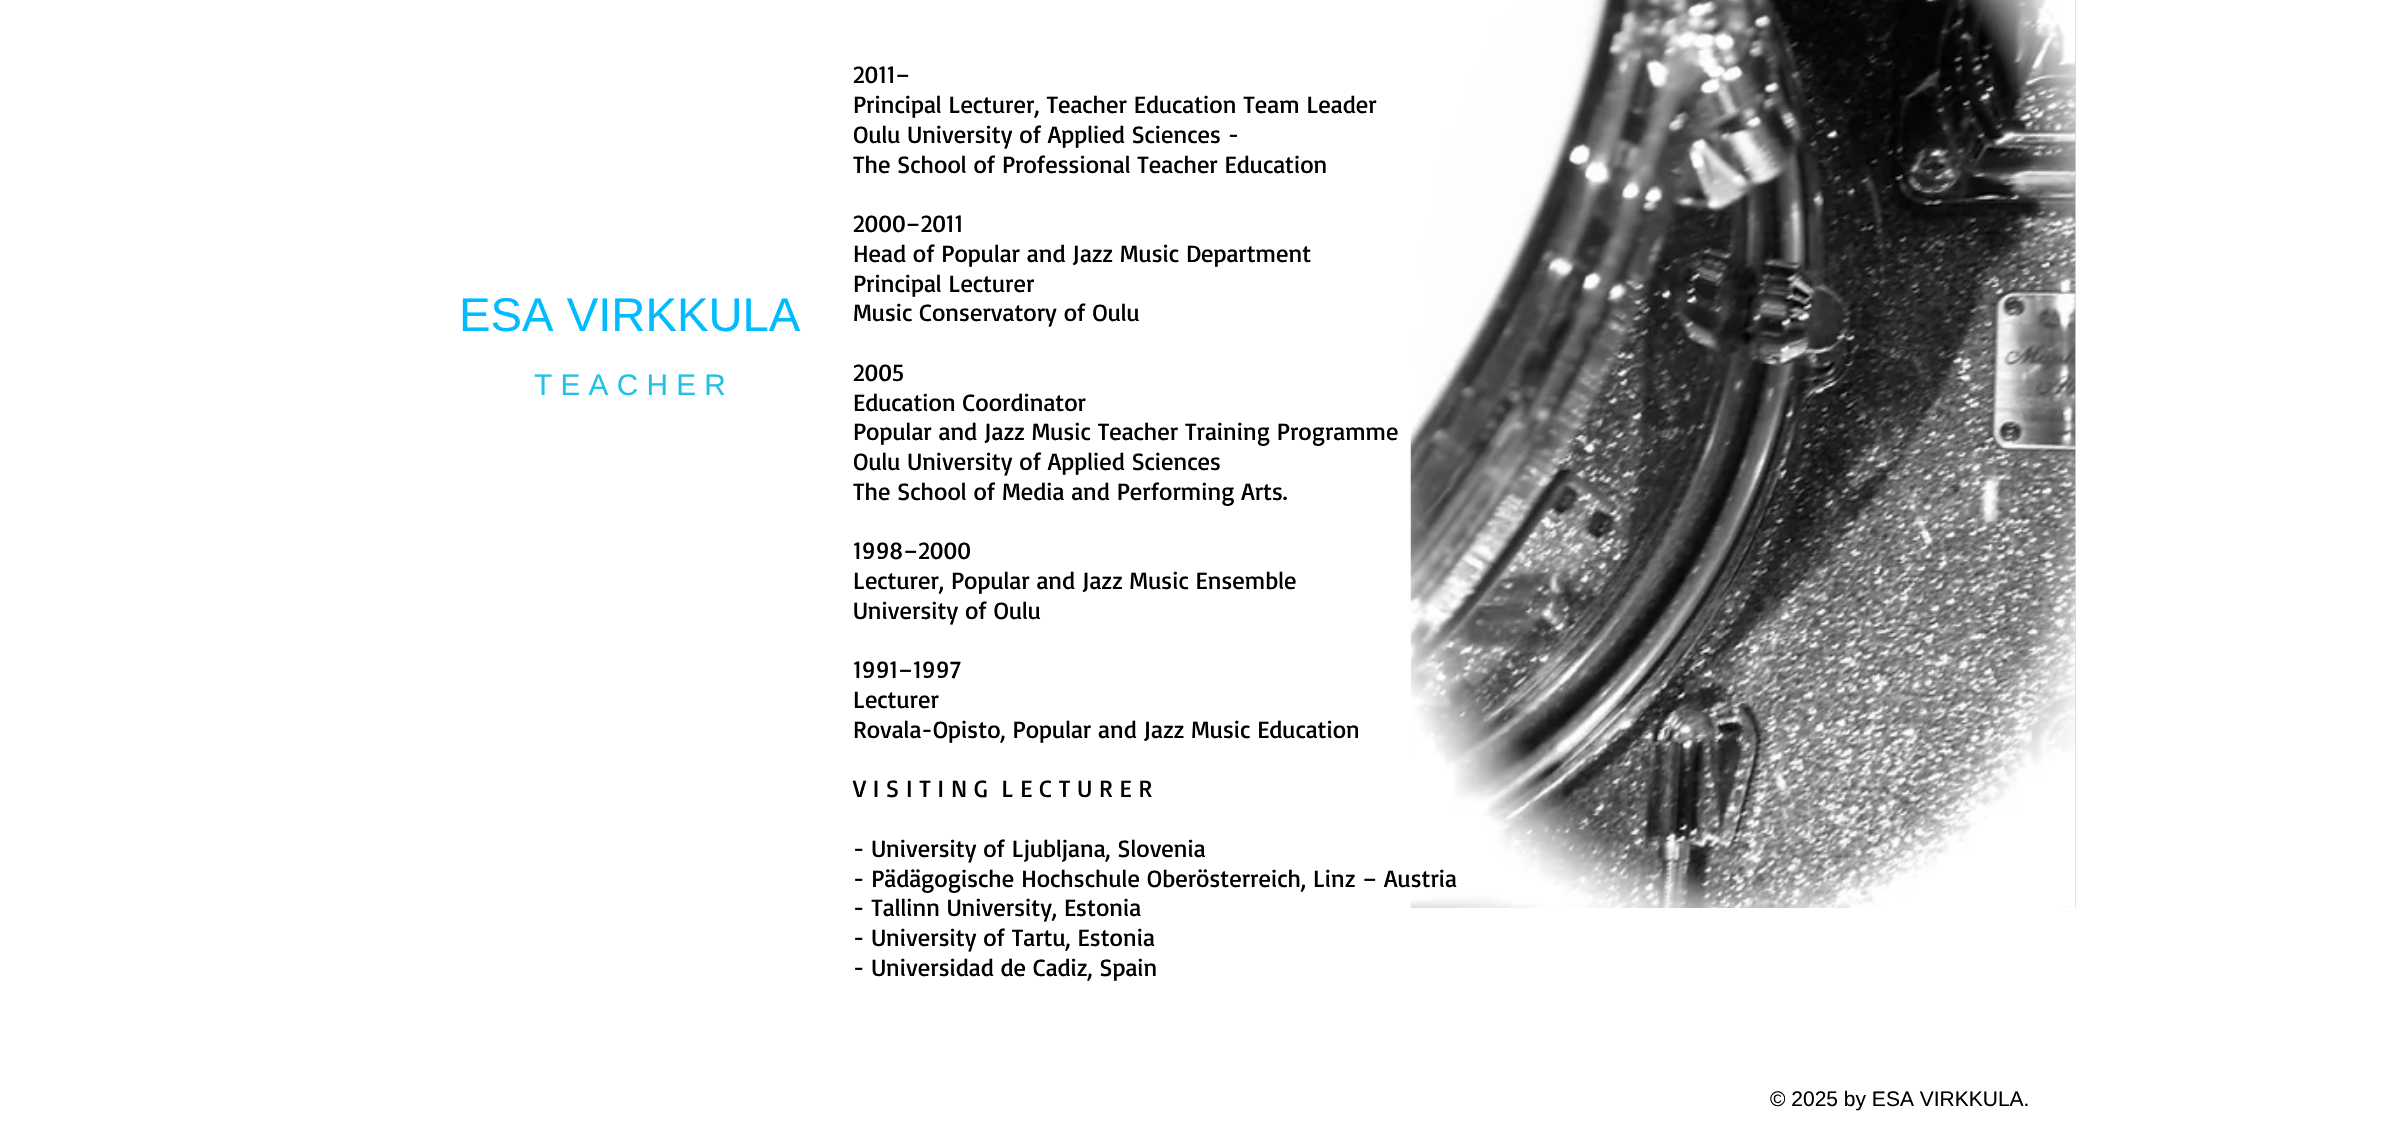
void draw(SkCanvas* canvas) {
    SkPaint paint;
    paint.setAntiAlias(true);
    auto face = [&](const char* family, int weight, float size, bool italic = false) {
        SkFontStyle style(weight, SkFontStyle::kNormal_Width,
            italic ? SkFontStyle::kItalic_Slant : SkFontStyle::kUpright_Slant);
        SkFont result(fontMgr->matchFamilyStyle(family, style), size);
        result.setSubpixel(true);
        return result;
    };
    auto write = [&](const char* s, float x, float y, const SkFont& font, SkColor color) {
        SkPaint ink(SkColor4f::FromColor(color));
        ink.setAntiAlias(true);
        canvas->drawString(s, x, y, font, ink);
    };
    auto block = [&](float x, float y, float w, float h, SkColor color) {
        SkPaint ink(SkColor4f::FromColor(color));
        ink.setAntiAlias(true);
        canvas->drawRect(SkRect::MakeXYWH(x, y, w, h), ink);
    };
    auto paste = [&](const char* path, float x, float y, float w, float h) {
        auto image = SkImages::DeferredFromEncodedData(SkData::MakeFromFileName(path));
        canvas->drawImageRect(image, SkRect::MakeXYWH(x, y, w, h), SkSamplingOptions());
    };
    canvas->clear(SK_ColorWHITE);
    auto kFont1 = face("Liberation Sans", 400, 47.25f);
    write("ESA VIRKKULA", 459, 331, kFont1, SkColorSetRGB(0, 188, 255));
    auto kFont2 = face("Basic", 400, 24.5f);
    write("2011–", 853, 83, kFont2, SK_ColorBLACK);
    write("Principal Lecturer, Teacher Education Team Leader", 853, 113, kFont2, SK_ColorBLACK);
    write("Oulu University of Applied Sciences -", 853, 143, kFont2, SK_ColorBLACK);
    write("The School of Professional Teacher Education", 853, 173, kFont2, SK_ColorBLACK);
    write("2000–2011", 853, 232, kFont2, SK_ColorBLACK);
    write("Head of Popular and Jazz Music Department", 853, 262, kFont2, SK_ColorBLACK);
    write("Principal Lecturer", 853, 292, kFont2, SK_ColorBLACK);
    write("Music Conservatory of Oulu", 853, 321, kFont2, SK_ColorBLACK);
    write("2005", 853, 381, kFont2, SK_ColorBLACK);
    write("Education Coordinator", 853, 411, kFont2, SK_ColorBLACK);
    write("Popular and Jazz Music Teacher Training Programme", 853, 440, kFont2, SK_ColorBLACK);
    write("Oulu University of Applied Sciences", 853, 470, kFont2, SK_ColorBLACK);
    write("The School of Media and Performing Arts.", 853, 500, kFont2, SK_ColorBLACK);
    write("1998–2000", 853, 559, kFont2, SK_ColorBLACK);
    write("Lecturer, Popular and Jazz Music Ensemble", 853, 589, kFont2, SK_ColorBLACK);
    write("University of Oulu", 853, 619, kFont2, SK_ColorBLACK);
    write("1991–1997", 853, 678, kFont2, SK_ColorBLACK);
    write("Lecturer", 853, 708, kFont2, SK_ColorBLACK);
    write("Rovala-Opisto, Popular and Jazz Music Education", 853, 738, kFont2, SK_ColorBLACK);
    write("V I S I T I N G  L E C T U R E R", 853, 797, kFont2, SK_ColorBLACK);
    write("- University of Ljubljana, Slovenia", 853, 857, kFont2, SK_ColorBLACK);
    block(2075, 0, 1, 908, SkColorSetRGB(216, 216, 216));
    paste("pic1.png", 1410, 0, 666, 908);
    write("- Pädägogische Hochschule Oberösterreich, Linz – Austria", 853, 887, kFont2, SK_ColorBLACK);
    write("- Tallinn University, Estonia", 853, 916, kFont2, SK_ColorBLACK);
    write("- University of Tartu, Estonia", 853, 946, kFont2, SK_ColorBLACK);
    write("- Universidad de Cadiz, Spain", 853, 976, kFont2, SK_ColorBLACK);
    auto kFont3 = face("Liberation Sans", 400, 29.75f);
    write("T E A C H E R", 534, 395, kFont3, SkColorSetRGB(36, 193, 228));
    auto kFont4 = face("Liberation Sans", 400, 21);
    write("© 2025 by ESA VIRKKULA.", 1770, 1106, kFont4, SK_ColorBLACK);
}
